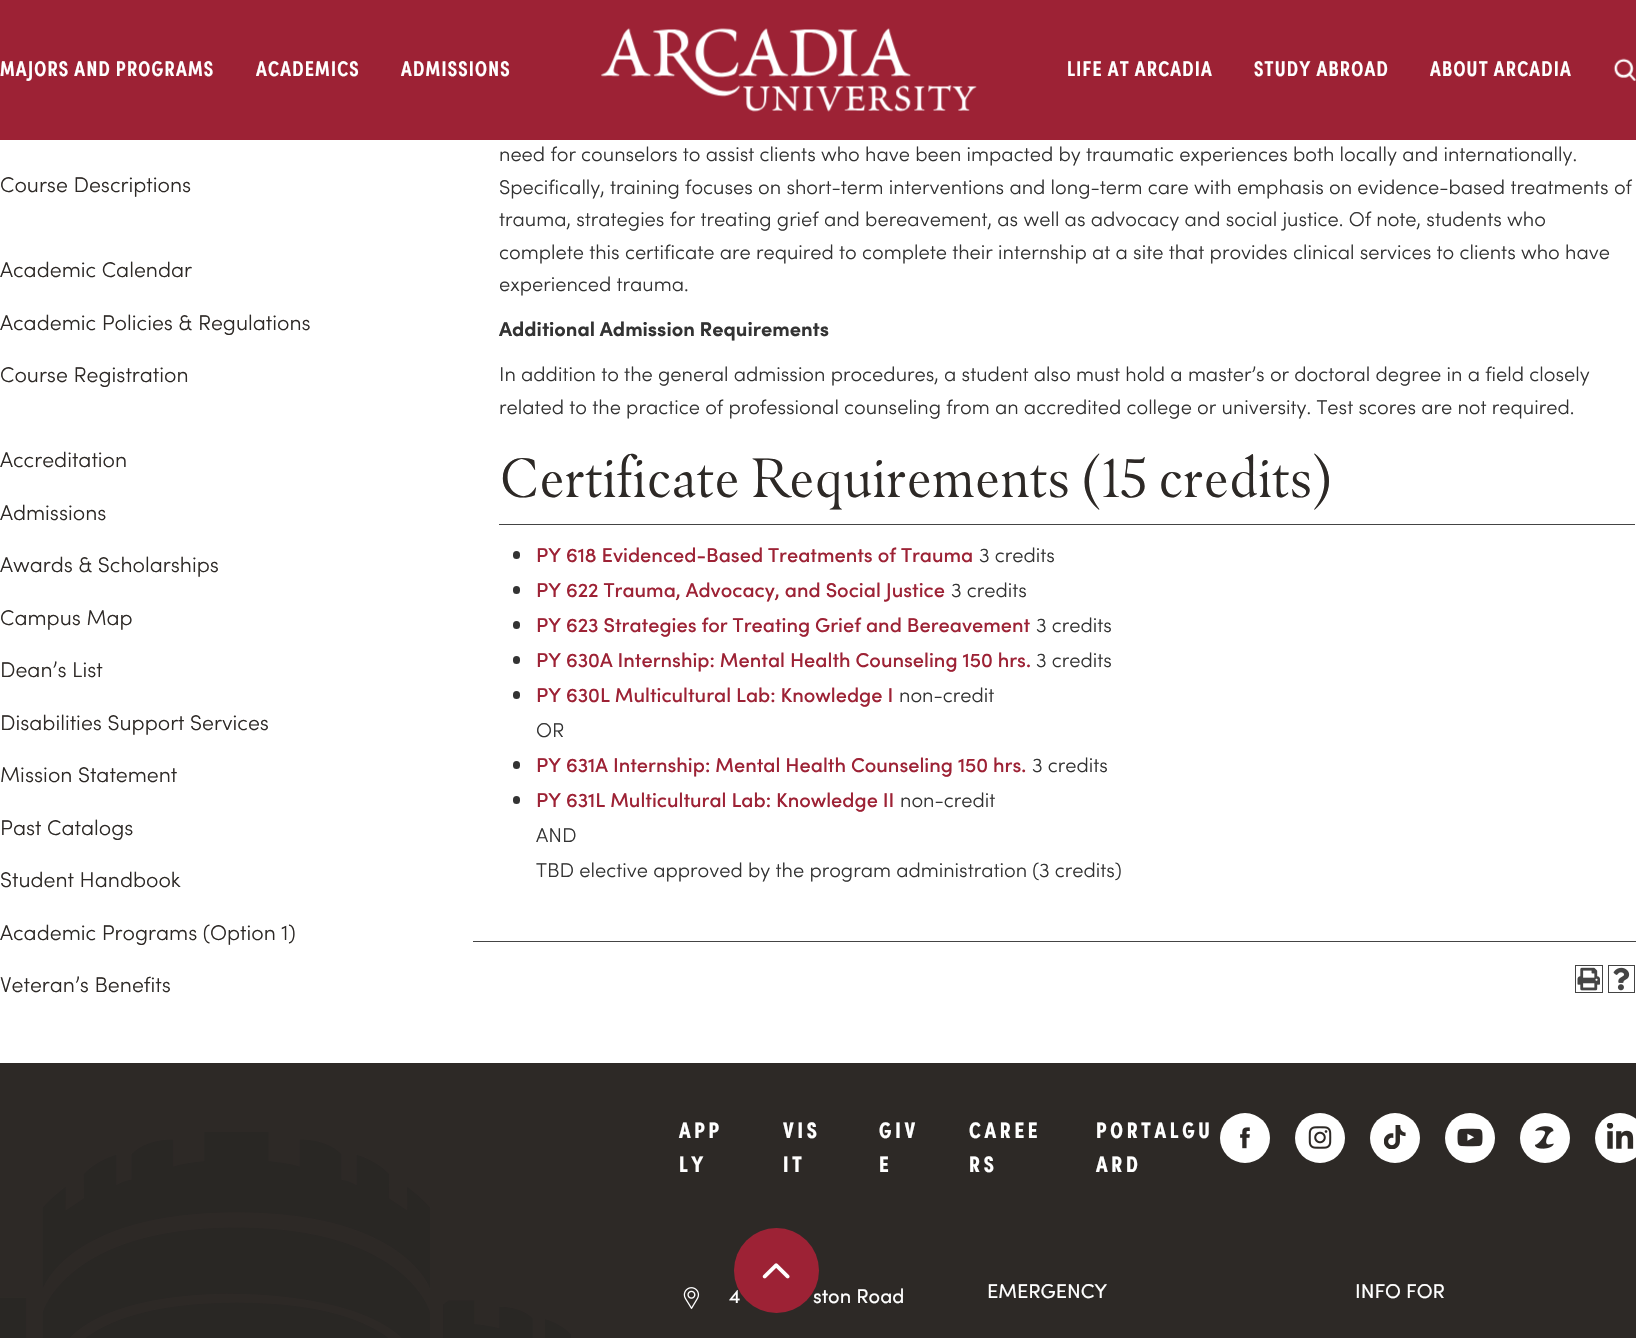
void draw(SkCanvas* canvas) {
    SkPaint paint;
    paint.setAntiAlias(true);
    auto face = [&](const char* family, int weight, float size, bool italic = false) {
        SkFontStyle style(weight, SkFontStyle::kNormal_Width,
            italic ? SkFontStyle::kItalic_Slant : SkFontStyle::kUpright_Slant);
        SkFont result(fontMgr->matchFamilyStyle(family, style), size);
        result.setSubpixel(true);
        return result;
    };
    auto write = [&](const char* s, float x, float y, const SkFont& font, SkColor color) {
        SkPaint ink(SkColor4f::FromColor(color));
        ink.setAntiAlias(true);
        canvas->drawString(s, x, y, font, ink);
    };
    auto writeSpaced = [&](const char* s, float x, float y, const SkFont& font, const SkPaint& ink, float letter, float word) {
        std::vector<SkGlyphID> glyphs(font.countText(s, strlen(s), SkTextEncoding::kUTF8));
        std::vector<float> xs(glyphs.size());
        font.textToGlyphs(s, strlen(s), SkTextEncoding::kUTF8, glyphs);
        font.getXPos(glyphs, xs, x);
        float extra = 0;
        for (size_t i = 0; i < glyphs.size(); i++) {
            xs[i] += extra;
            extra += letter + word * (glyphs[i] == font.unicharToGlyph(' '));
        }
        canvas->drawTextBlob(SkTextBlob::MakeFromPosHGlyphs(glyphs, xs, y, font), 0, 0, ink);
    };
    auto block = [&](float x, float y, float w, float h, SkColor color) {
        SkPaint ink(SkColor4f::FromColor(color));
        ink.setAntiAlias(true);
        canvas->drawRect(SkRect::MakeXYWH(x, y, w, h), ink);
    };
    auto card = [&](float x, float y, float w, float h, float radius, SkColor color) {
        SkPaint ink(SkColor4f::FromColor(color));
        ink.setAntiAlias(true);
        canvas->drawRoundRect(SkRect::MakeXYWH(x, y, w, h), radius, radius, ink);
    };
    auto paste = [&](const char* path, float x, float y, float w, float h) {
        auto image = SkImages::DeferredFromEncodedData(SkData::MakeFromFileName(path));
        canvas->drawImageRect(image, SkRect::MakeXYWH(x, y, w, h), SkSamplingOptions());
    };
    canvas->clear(SK_ColorWHITE);
    block(0, 0, 1636, 140, SkColorSetRGB(157, 34, 53));
    auto kFont1 = face("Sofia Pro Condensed", 600, 21.25f);
    paint.setColor(SK_ColorWHITE);
    writeSpaced("MAJORS AND PROGRAMS", 0, 76, kFont1, paint, 1.25f, 0);
    writeSpaced("ACADEMICS", 256, 76, kFont1, paint, 1.25f, 0);
    writeSpaced("ADMISSIONS", 401, 76, kFont1, paint, 1.25f, 0);
    paste("pic1.png", 601, 28, 376, 84);
    writeSpaced("LIFE AT ARCADIA", 1067, 76, kFont1, paint, 1.25f, 0);
    writeSpaced("STUDY ABROAD", 1254, 76, kFont1, paint, 1.25f, 0);
    writeSpaced("ABOUT ARCADIA", 1430, 76, kFont1, paint, 1.25f, 0);
    paste("pic2.png", 1613, 58, 23, 23);
    auto kFont2 = face("Sofia", 300, 21.25f);
    write("Course Descriptions", 0, 192, kFont2, SkColorSetRGB(45, 41, 38));
    write("Academic Calendar", 0, 277, kFont2, SkColorSetRGB(45, 41, 38));
    write("Academic Policies & Regulations", 0, 330, kFont2, SkColorSetRGB(45, 41, 38));
    write("Course Registration", 0, 382, kFont2, SkColorSetRGB(45, 41, 38));
    write("Accreditation", 0, 467, kFont2, SkColorSetRGB(45, 41, 38));
    write("Admissions", 0, 520, kFont2, SkColorSetRGB(45, 41, 38));
    write("Awards & Scholarships", 0, 572, kFont2, SkColorSetRGB(45, 41, 38));
    write("Campus Map", 0, 625, kFont2, SkColorSetRGB(45, 41, 38));
    write("Dean’s List", 0, 677, kFont2, SkColorSetRGB(45, 41, 38));
    write("Disabilities Support Services", 0, 730, kFont2, SkColorSetRGB(45, 41, 38));
    write("Mission Statement", 0, 782, kFont2, SkColorSetRGB(45, 41, 38));
    write("Past Catalogs", 0, 835, kFont2, SkColorSetRGB(45, 41, 38));
    write("Student Handbook", 0, 887, kFont2, SkColorSetRGB(45, 41, 38));
    write("Academic Programs (Option 1)", 0, 940, kFont2, SkColorSetRGB(45, 41, 38));
    write("Veteran’s Benefits", 0, 992, kFont2, SkColorSetRGB(45, 41, 38));
    auto kFont3 = face("Sofia", 300, 20);
    write("need for counselors to assist clients who have been impacted by traumatic experiences both locally and internationally.", 499, 161, kFont3, SkColorSetRGB(51, 51, 51));
    write("Specifically, training focuses on short-term interventions and long-term care with emphasis on evidence-based treatments of", 499, 194, kFont3, SkColorSetRGB(51, 51, 51));
    write("trauma, strategies for treating grief and bereavement, as well as advocacy and social justice. Of note, students who", 499, 226, kFont3, SkColorSetRGB(51, 51, 51));
    write("complete this certificate are required to complete their internship at a site that provides clinical services to clients who have", 499, 259, kFont3, SkColorSetRGB(51, 51, 51));
    write("experienced trauma.", 499, 291, kFont3, SkColorSetRGB(51, 51, 51));
    auto kFont4 = face("Sofia", 700, 20);
    write("Additional Admission Requirements", 499, 336, kFont4, SkColorSetRGB(51, 51, 51));
    write("In addition to the general admission procedures, a student also must hold a master’s or doctoral degree in a field closely", 499, 381, kFont3, SkColorSetRGB(51, 51, 51));
    write("related to the practice of professional counseling from an accredited college or university. Test scores are not required.", 499, 414, kFont3, SkColorSetRGB(51, 51, 51));
    auto kFont5 = face("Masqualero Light", 300, 55);
    write("Certificate Requirements (15 credits)", 499, 497, kFont5, SkColorSetRGB(45, 41, 38));
    block(499, 524, 1136, 1, SkColorSetRGB(68, 68, 68));
    card(513, 551, 7, 8, 3.5f, SkColorSetRGB(51, 51, 51));
    auto kFont6 = face("Sofia", 500, 20);
    write("PY 618 Evidenced-Based Treatments of Trauma", 536, 562, kFont6, SkColorSetRGB(157, 34, 53));
    write("3 credits", 979, 562, kFont3, SkColorSetRGB(51, 51, 51));
    card(513, 586, 7, 8, 3.5f, SkColorSetRGB(51, 51, 51));
    write("PY 622 Trauma, Advocacy, and Social Justice", 536, 597, kFont6, SkColorSetRGB(157, 34, 53));
    write("3 credits", 951, 597, kFont3, SkColorSetRGB(51, 51, 51));
    card(513, 621, 7, 8, 3.5f, SkColorSetRGB(51, 51, 51));
    write("PY 623 Strategies for Treating Grief and Bereavement", 536, 632, kFont6, SkColorSetRGB(157, 34, 53));
    write("3 credits", 1036, 632, kFont3, SkColorSetRGB(51, 51, 51));
    card(513, 656, 7, 8, 3.5f, SkColorSetRGB(51, 51, 51));
    write("PY 630A Internship: Mental Health Counseling 150 hrs.", 536, 667, kFont6, SkColorSetRGB(157, 34, 53));
    write("3 credits", 1036, 667, kFont3, SkColorSetRGB(51, 51, 51));
    card(513, 691, 7, 8, 3.5f, SkColorSetRGB(51, 51, 51));
    write("PY 630L Multicultural Lab: Knowledge I", 536, 702, kFont6, SkColorSetRGB(157, 34, 53));
    write("non-credit", 899, 702, kFont3, SkColorSetRGB(51, 51, 51));
    write("OR", 536, 737, kFont3, SkColorSetRGB(51, 51, 51));
    card(513, 761, 7, 8, 3.5f, SkColorSetRGB(51, 51, 51));
    write("PY 631A Internship: Mental Health Counseling 150 hrs.", 536, 772, kFont6, SkColorSetRGB(157, 34, 53));
    write("3 credits", 1032, 772, kFont3, SkColorSetRGB(51, 51, 51));
    card(513, 796, 7, 8, 3.5f, SkColorSetRGB(51, 51, 51));
    write("PY 631L Multicultural Lab: Knowledge II", 536, 807, kFont6, SkColorSetRGB(157, 34, 53));
    write("non-credit", 900, 807, kFont3, SkColorSetRGB(51, 51, 51));
    write("AND", 536, 842, kFont3, SkColorSetRGB(51, 51, 51));
    write("TBD elective approved by the program administration (3 credits)", 536, 877, kFont3, SkColorSetRGB(51, 51, 51));
    block(473, 941, 1163, 1, SkColorSetRGB(68, 68, 68));
    paint.setStyle(SkPaint::kStroke_Style);
    paint.setStrokeWidth(1);
    paint.setColor(SkColorSetRGB(68, 68, 68));
    canvas->drawRect(SkRect::MakeXYWH(1575.5f, 965.5f, 27, 27), paint);
    paste("pic3.png", 1577, 967, 23, 24);
    canvas->drawRect(SkRect::MakeXYWH(1608.5f, 965.5f, 26, 27), paint);
    paste("pic4.png", 1613, 967, 17, 24);
    block(0, 1063, 1636, 275, SkColorSetRGB(45, 41, 38));
    paste("pic5.png", 0, 1132, 571, 206);
    auto kFont7 = face("Sofia Pro Condensed", 700, 22.5f);
    paint.setStyle(SkPaint::kFill_Style);
    paint.setColor(SK_ColorWHITE);
    writeSpaced("APP", 679, 1138, kFont7, paint, 3.75f, 0);
    writeSpaced("LY", 679, 1172, kFont7, paint, 3.75f, 0);
    writeSpaced("VIS", 783, 1138, kFont7, paint, 3.75f, 0);
    writeSpaced("IT", 783, 1172, kFont7, paint, 3.75f, 0);
    writeSpaced("GIV", 879, 1138, kFont7, paint, 3.75f, 0);
    writeSpaced("E", 879, 1172, kFont7, paint, 3.75f, 0);
    writeSpaced("CAREE", 969, 1138, kFont7, paint, 3.75f, 0);
    writeSpaced("RS", 969, 1172, kFont7, paint, 3.75f, 0);
    writeSpaced("PORTALGU", 1096, 1138, kFont7, paint, 3.75f, 0);
    writeSpaced("ARD", 1096, 1172, kFont7, paint, 3.75f, 0);
    canvas->drawCircle(1245, 1138, 25, paint);
    paste("pic6.png", 1240, 1127, 10, 22);
    canvas->drawCircle(1320, 1138, 25, paint);
    paste("pic7.png", 1308, 1126, 24, 23);
    canvas->drawCircle(1395, 1138, 25, paint);
    paste("pic8.png", 1384, 1125, 22, 24);
    canvas->drawCircle(1470, 1138, 25, paint);
    paste("pic9.png", 1457, 1128, 26, 19);
    canvas->drawCircle(1545, 1138, 25, paint);
    paste("pic10.png", 1535, 1126, 19, 23);
    canvas->drawCircle(1620, 1138, 25, paint);
    paste("pic11.png", 1606, 1123, 28, 26);
    paste("pic12.png", 683, 1287, 17, 22);
    auto kFont8 = face("Sofia", 400, 20);
    write("4", 729, 1303, kFont8, SK_ColorWHITE);
    write("ston Road", 813, 1303, kFont8, SK_ColorWHITE);
    write("EMERGENCY", 987, 1298, kFont8, SK_ColorWHITE);
    write("INFO FOR", 1355, 1298, kFont8, SK_ColorWHITE);
    paint.setColor(SkColorSetRGB(157, 34, 53));
    canvas->drawCircle(776.5f, 1270.5f, 42.5f, paint);
    paste("pic13.png", 762, 1263, 28, 16);
}
